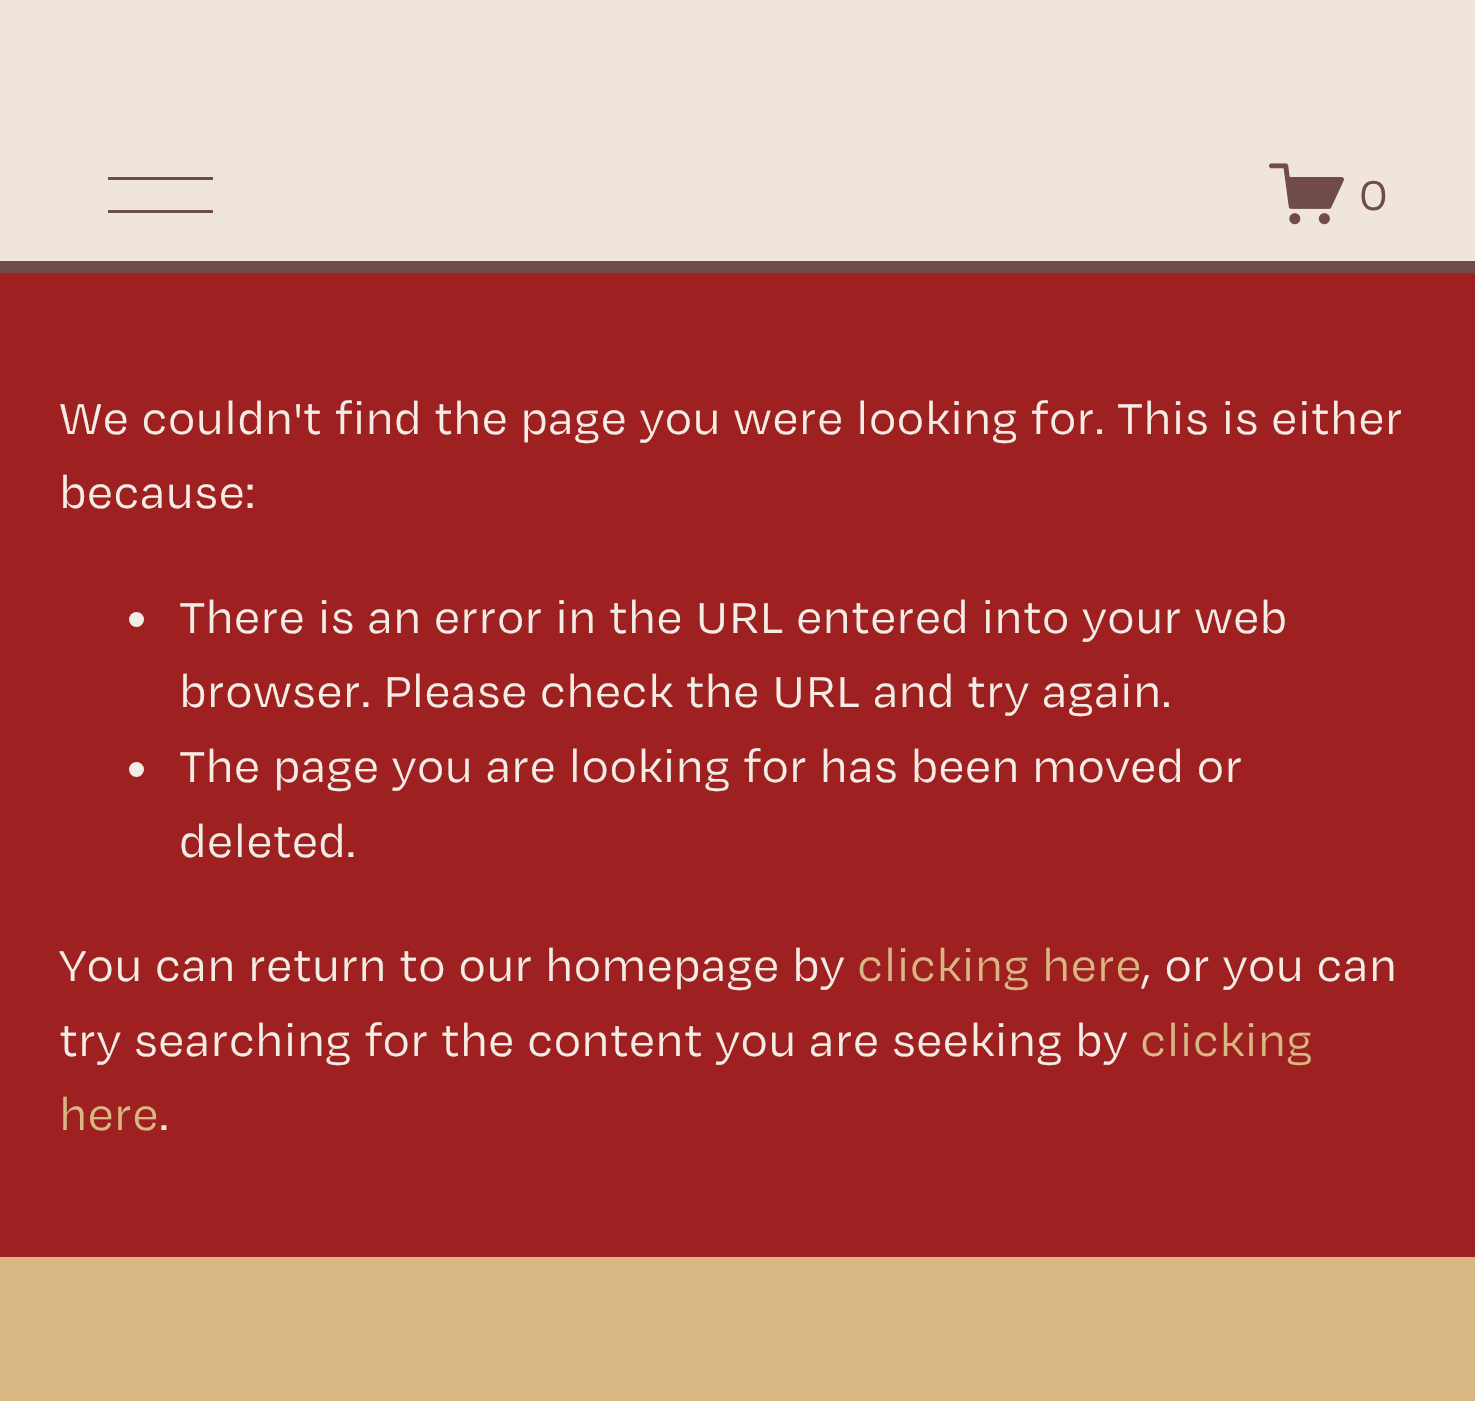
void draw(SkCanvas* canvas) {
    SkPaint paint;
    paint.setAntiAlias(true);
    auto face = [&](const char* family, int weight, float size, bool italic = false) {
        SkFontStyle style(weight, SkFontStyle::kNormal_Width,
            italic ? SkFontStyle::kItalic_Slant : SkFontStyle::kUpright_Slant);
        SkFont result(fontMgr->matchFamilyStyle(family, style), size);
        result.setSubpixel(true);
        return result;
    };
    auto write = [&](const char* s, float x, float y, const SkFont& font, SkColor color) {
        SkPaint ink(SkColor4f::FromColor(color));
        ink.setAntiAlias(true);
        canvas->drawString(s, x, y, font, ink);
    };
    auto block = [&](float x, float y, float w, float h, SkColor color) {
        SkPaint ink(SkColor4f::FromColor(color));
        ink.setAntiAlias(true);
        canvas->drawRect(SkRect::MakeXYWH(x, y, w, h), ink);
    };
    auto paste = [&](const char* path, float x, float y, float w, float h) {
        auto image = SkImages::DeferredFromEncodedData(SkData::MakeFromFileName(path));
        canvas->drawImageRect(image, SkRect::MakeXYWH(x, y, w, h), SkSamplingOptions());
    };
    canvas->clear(SkColorSetRGB(159, 32, 32));
    block(0, 0, 1475, 261, SkColorSetRGB(240, 229, 221));
    block(108, 177, 105, 3, SkColorSetRGB(113, 75, 75));
    block(108, 210, 105, 3, SkColorSetRGB(113, 75, 75));
    paste("pic1.png", 1269, 163, 75, 62);
    auto kFont1 = face("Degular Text", 400, 48);
    write("0", 1359, 210, kFont1, SkColorSetRGB(113, 75, 75));
    block(0, 261, 1475, 12, SkColorSetRGB(113, 75, 75));
    auto kFont2 = face("Degular Text", 400, 49.75f);
    write("We couldn't find the page you were looking for. This is either", 59, 434, kFont2, SkColorSetRGB(243, 237, 229));
    write("because:", 59, 508, kFont2, SkColorSetRGB(243, 237, 229));
    paint.setColor(SkColorSetRGB(243, 237, 229));
    canvas->drawCircle(136.5f, 619.5f, 7.5f, paint);
    write("There is an error in the URL entered into your web", 179, 633, kFont2, SkColorSetRGB(243, 237, 229));
    write("browser. Please check the URL and try again.", 179, 707, kFont2, SkColorSetRGB(243, 237, 229));
    canvas->drawCircle(136.5f, 769.5f, 7.5f, paint);
    write("The page you are looking for has been moved or", 179, 782, kFont2, SkColorSetRGB(243, 237, 229));
    write("deleted.", 179, 857, kFont2, SkColorSetRGB(243, 237, 229));
    write("You can return to our homepage by", 59, 981, kFont2, SkColorSetRGB(243, 237, 229));
    write("clicking here", 857, 981, kFont2, SkColorSetRGB(217, 183, 131));
    write(", or you can", 1142, 981, kFont2, SkColorSetRGB(243, 237, 229));
    write("try searching for the", 59, 1056, kFont2, SkColorSetRGB(243, 237, 229));
    write("content you are seeking by", 527, 1056, kFont2, SkColorSetRGB(243, 237, 229));
    write("clicking", 1140, 1056, kFont2, SkColorSetRGB(217, 183, 131));
    write("here", 59, 1130, kFont2, SkColorSetRGB(217, 183, 131));
    write(".", 159, 1130, kFont2, SkColorSetRGB(243, 237, 229));
    block(0, 1257, 1475, 144, SkColorSetRGB(217, 183, 131));
}
